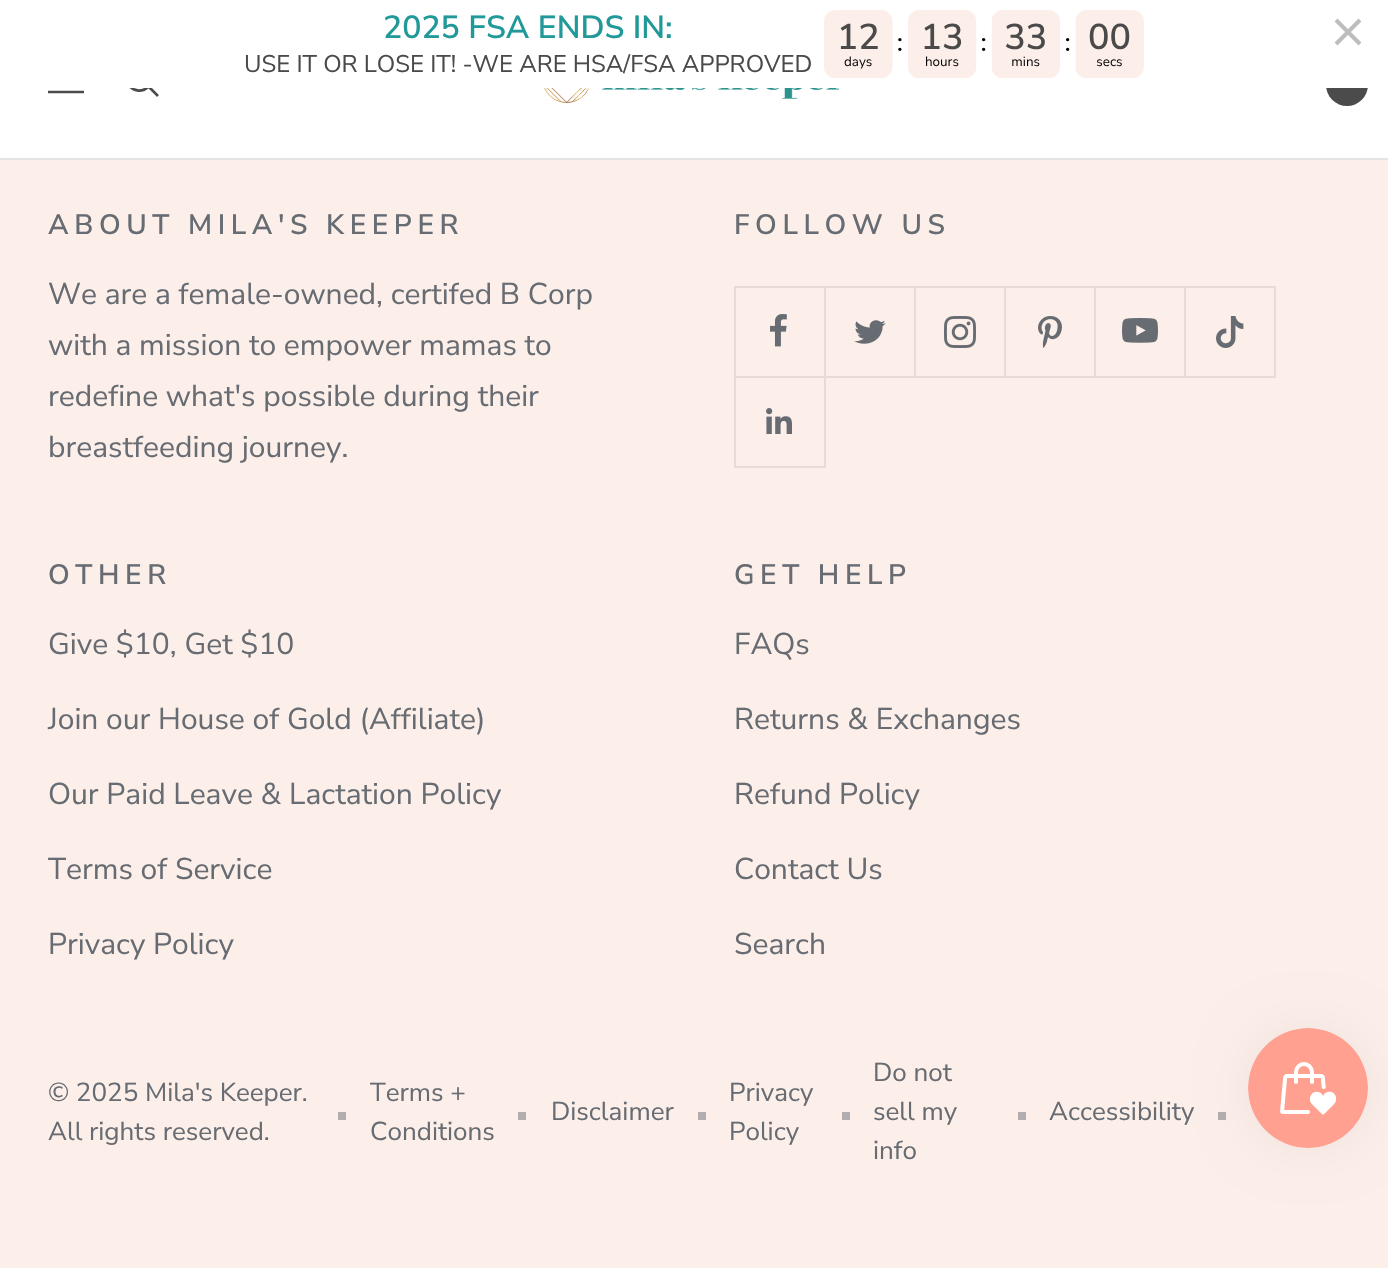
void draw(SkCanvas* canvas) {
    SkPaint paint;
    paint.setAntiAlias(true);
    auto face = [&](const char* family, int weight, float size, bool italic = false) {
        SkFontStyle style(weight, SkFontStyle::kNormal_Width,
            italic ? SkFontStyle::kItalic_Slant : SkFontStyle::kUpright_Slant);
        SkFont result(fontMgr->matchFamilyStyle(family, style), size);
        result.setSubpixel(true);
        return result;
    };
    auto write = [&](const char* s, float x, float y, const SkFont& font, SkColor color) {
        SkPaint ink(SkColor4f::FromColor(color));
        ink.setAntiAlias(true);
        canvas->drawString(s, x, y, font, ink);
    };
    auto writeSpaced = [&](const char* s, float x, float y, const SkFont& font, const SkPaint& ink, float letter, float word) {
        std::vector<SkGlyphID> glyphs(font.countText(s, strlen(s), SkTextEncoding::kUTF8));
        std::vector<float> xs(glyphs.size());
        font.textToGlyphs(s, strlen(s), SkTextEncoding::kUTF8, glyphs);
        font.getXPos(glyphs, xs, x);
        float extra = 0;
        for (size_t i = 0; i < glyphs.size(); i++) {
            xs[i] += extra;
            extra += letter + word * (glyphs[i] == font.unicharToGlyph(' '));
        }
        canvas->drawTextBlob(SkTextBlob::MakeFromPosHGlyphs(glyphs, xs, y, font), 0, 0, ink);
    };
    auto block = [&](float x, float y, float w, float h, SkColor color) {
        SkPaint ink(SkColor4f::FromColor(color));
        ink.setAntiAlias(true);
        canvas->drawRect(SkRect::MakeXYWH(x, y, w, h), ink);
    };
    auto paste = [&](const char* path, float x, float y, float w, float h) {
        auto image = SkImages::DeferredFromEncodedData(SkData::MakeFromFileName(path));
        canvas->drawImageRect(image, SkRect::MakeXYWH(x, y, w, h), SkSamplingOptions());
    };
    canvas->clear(SkColorSetRGB(252, 238, 233));
    block(0, 88, 1388, 70, SK_ColorWHITE);
    paint.setStyle(SkPaint::kStroke_Style);
    paint.setStrokeWidth(2.6f);
    paint.setColor(SkColorSetRGB(75, 75, 75));
    canvas->drawPath(SkPathBuilder().moveTo(48, 68).lineTo(84, 68).moveTo(48, 92).lineTo(84, 92).close().moveTo(48, 80).lineTo(84, 80).close().detach(), paint);
    canvas->drawPath(SkPathBuilder().moveTo(148.5f, 86.5f).cubicTo(161, 74, 142.5f, 55.5f, 130, 68).cubicTo(117.5f, 80.5f, 136, 99, 148.5f, 86.5f).close().moveTo(148.5f, 86.5f).lineTo(158, 96).detach(), paint);
    paint.setStyle(SkPaint::kFill_Style);
    canvas->drawCircle(1347, 85, 21, paint);
    block(0, 0, 1388, 88, SK_ColorWHITE);
    auto kFont1 = face("Nunito Sans", 600, 32);
    write("2025 FSA ENDS IN:", 383, 38, kFont1, SkColorSetRGB(34, 153, 153));
    auto kFont2 = face("Nunito Sans", 400, 24);
    write("USE IT OR LOSE IT! -WE ARE HSA/FSA APPROVED", 244, 72, kFont2, SkColorSetRGB(74, 74, 74));
    paste("pic1.png", 824, 10, 320, 68);
    paint.setStyle(SkPaint::kStroke_Style);
    paint.setStrokeWidth(4);
    paint.setColor(SkColorSetRGB(189, 189, 189));
    canvas->drawPath(SkPathBuilder().moveTo(1360, 20).lineTo(1336, 44).moveTo(1360, 44).lineTo(1336, 20).detach(), paint);
    block(0, 158, 1388, 2, SkColorSetRGB(228, 228, 228));
    paste("pic2.png", 544, 88, 295, 15);
    auto kFont3 = face("Nunito Sans", 600, 28);
    paint.setStyle(SkPaint::kFill_Style);
    paint.setColor(SkColorSetRGB(103, 108, 115));
    writeSpaced("ABOUT MILA'S KEEPER", 48, 234, kFont3, paint, 5.6f, 0);
    auto kFont4 = face("Nunito Sans", 400, 30);
    write("We are a female-owned, certifed B Corp", 48, 304, kFont4, SkColorSetRGB(103, 108, 115));
    write("with a mission to empower mamas to", 48, 355, kFont4, SkColorSetRGB(103, 108, 115));
    write("redefine what's possible during their", 48, 406, kFont4, SkColorSetRGB(103, 108, 115));
    write("breastfeeding journey.", 48, 457, kFont4, SkColorSetRGB(103, 108, 115));
    writeSpaced("FOLLOW US", 734, 234, kFont3, paint, 5.6f, 0);
    paint.setColor(SkColorSetRGB(230, 219, 215));
    canvas->drawPath(SkPathBuilder().moveTo(736, 376).lineTo(736, 378).lineTo(826, 378).lineTo(826, 288).lineTo(824, 288).lineTo(824, 376).close().detach(), paint);
    block(734, 376, 2, 2, SkColorSetRGB(230, 219, 215));
    block(734, 286, 92, 2, SkColorSetRGB(230, 219, 215));
    block(734, 286, 2, 90, SkColorSetRGB(230, 219, 215));
    paste("pic3.png", 770, 314, 17, 33);
    canvas->drawPath(SkPathBuilder().moveTo(826, 376).lineTo(826, 378).lineTo(916, 378).lineTo(916, 288).lineTo(914, 288).lineTo(914, 376).close().detach(), paint);
    block(824, 286, 92, 2, SkColorSetRGB(230, 219, 215));
    paste("pic4.png", 854, 320, 32, 24);
    canvas->drawPath(SkPathBuilder().moveTo(916, 376).lineTo(916, 378).lineTo(1006, 378).lineTo(1006, 288).lineTo(1004, 288).lineTo(1004, 376).close().detach(), paint);
    block(914, 286, 92, 2, SkColorSetRGB(230, 219, 215));
    paste("pic5.png", 944, 316, 32, 32);
    canvas->drawPath(SkPathBuilder().moveTo(1006, 376).lineTo(1006, 378).lineTo(1096, 378).lineTo(1096, 288).lineTo(1094, 288).lineTo(1094, 376).close().detach(), paint);
    block(1004, 286, 92, 2, SkColorSetRGB(230, 219, 215));
    paste("pic6.png", 1038, 316, 24, 32);
    canvas->drawPath(SkPathBuilder().moveTo(1096, 376).lineTo(1096, 378).lineTo(1186, 378).lineTo(1186, 288).lineTo(1184, 288).lineTo(1184, 376).close().detach(), paint);
    block(1094, 286, 92, 2, SkColorSetRGB(230, 219, 215));
    paste("pic7.png", 1122, 318, 36, 25);
    canvas->drawPath(SkPathBuilder().moveTo(1186, 376).lineTo(1186, 378).lineTo(1276, 378).lineTo(1276, 288).lineTo(1274, 288).lineTo(1274, 376).close().detach(), paint);
    block(1184, 286, 92, 2, SkColorSetRGB(230, 219, 215));
    paste("pic8.png", 1216, 316, 28, 32);
    canvas->drawPath(SkPathBuilder().moveTo(736, 466).lineTo(736, 468).lineTo(826, 468).lineTo(826, 378).lineTo(824, 378).lineTo(824, 466).close().detach(), paint);
    block(734, 376, 2, 92, SkColorSetRGB(230, 219, 215));
    paste("pic9.png", 766, 408, 26, 26);
    paint.setColor(SkColorSetRGB(103, 108, 115));
    writeSpaced("OTHER", 48, 584, kFont3, paint, 5.6f, 0);
    write("Give $10, Get $10", 48, 654, kFont4, SkColorSetRGB(103, 108, 115));
    write("Join our House of Gold (Affiliate)", 48, 729, kFont4, SkColorSetRGB(103, 108, 115));
    write("Our Paid Leave & Lactation Policy", 48, 804, kFont4, SkColorSetRGB(103, 108, 115));
    write("Terms of Service", 48, 879, kFont4, SkColorSetRGB(103, 108, 115));
    write("Privacy Policy", 48, 954, kFont4, SkColorSetRGB(103, 108, 115));
    writeSpaced("GET HELP", 734, 584, kFont3, paint, 5.6f, 0);
    write("FAQs", 734, 654, kFont4, SkColorSetRGB(103, 108, 115));
    write("Returns & Exchanges", 734, 729, kFont4, SkColorSetRGB(103, 108, 115));
    write("Refund Policy", 734, 804, kFont4, SkColorSetRGB(103, 108, 115));
    write("Contact Us", 734, 879, kFont4, SkColorSetRGB(103, 108, 115));
    write("Search", 734, 954, kFont4, SkColorSetRGB(103, 108, 115));
    auto kFont5 = face("Nunito Sans", 400, 26);
    write("© 2025 Mila's Keeper.", 48, 1101, kFont5, SkColorSetRGB(103, 108, 115));
    block(338, 1112, 8, 8, SkColorSetRGB(178, 173, 174));
    write("Terms +", 370, 1101, kFont5, SkColorSetRGB(103, 108, 115));
    write("Conditions", 370, 1140, kFont5, SkColorSetRGB(103, 108, 115));
    block(518, 1112, 8, 8, SkColorSetRGB(178, 173, 174));
    write("Disclaimer", 551, 1120, kFont5, SkColorSetRGB(103, 108, 115));
    block(698, 1112, 8, 8, SkColorSetRGB(178, 173, 174));
    write("Privacy", 729, 1101, kFont5, SkColorSetRGB(103, 108, 115));
    write("Policy", 729, 1140, kFont5, SkColorSetRGB(103, 108, 115));
    block(842, 1112, 8, 8, SkColorSetRGB(178, 173, 174));
    write("Do not", 873, 1081, kFont5, SkColorSetRGB(103, 108, 115));
    write("sell my", 873, 1120, kFont5, SkColorSetRGB(103, 108, 115));
    write("info", 873, 1159, kFont5, SkColorSetRGB(103, 108, 115));
    block(1018, 1112, 8, 8, SkColorSetRGB(178, 173, 174));
    write("Accessibility", 1049, 1120, kFont5, SkColorSetRGB(103, 108, 115));
    block(1218, 1112, 8, 8, SkColorSetRGB(178, 173, 174));
    write("All rights reserved.", 48, 1140, kFont5, SkColorSetRGB(103, 108, 115));
    paint.setColor(SkColorSetARGB(13, 0, 0, 0));
    paint.setMaskFilter(SkMaskFilter::MakeBlur(kNormal_SkBlurStyle, 25));
    canvas->drawRoundRect(SkRect::MakeXYWH(1248, 1028, 120, 120), 60, 60, paint);
    paint.setMaskFilter(nullptr);
    paste("pic10.png", 1248, 1028, 120, 120);
}
